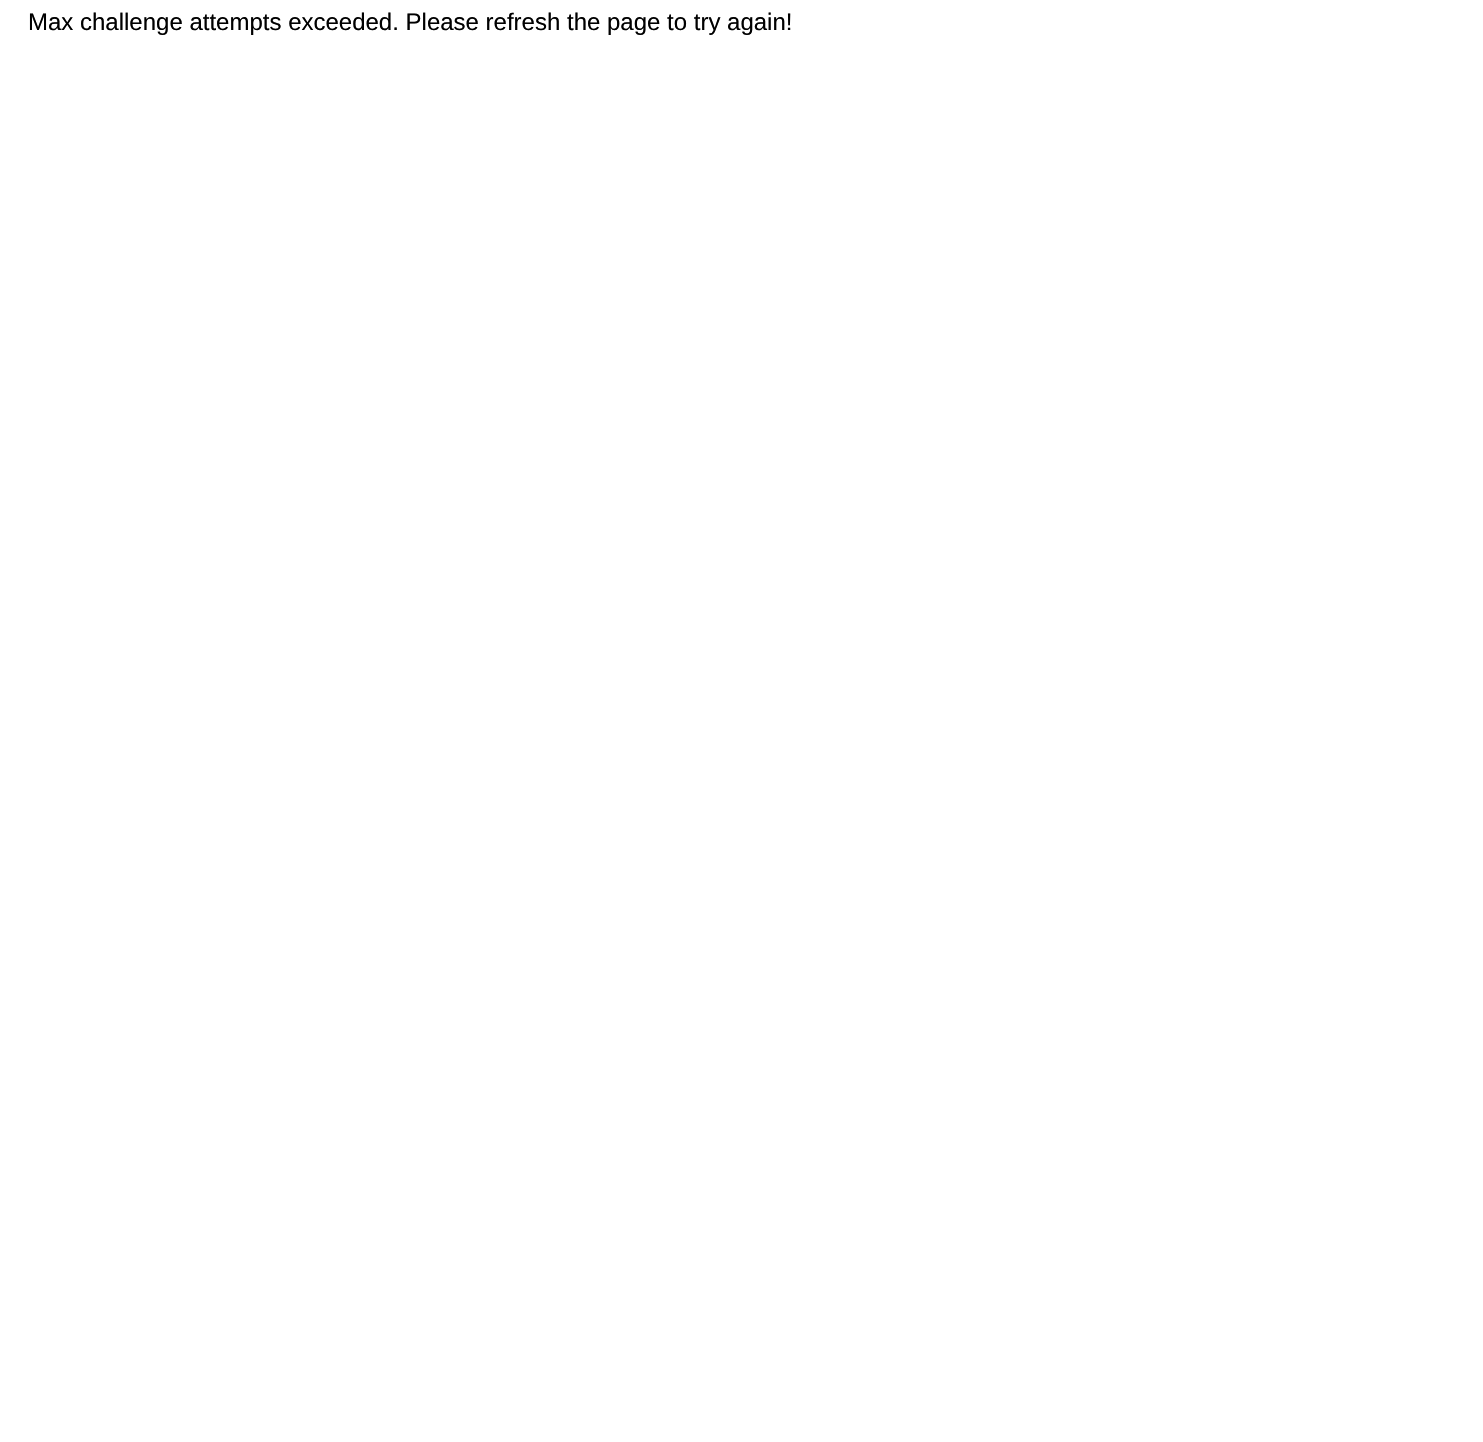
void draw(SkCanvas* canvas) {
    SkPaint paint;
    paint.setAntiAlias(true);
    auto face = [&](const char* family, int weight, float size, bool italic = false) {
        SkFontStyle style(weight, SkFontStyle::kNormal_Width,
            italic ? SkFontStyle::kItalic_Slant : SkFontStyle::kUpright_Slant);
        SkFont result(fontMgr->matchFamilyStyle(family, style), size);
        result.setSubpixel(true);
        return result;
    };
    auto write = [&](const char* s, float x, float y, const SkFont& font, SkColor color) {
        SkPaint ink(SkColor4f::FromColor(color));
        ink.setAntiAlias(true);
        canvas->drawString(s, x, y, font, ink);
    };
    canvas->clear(SK_ColorWHITE);
    auto kFont1 = face("Liberation Sans", 400, 24);
    write("Max challenge attempts exceeded. Please refresh the page to try again!", 28, 30, kFont1, SK_ColorBLACK);
}
